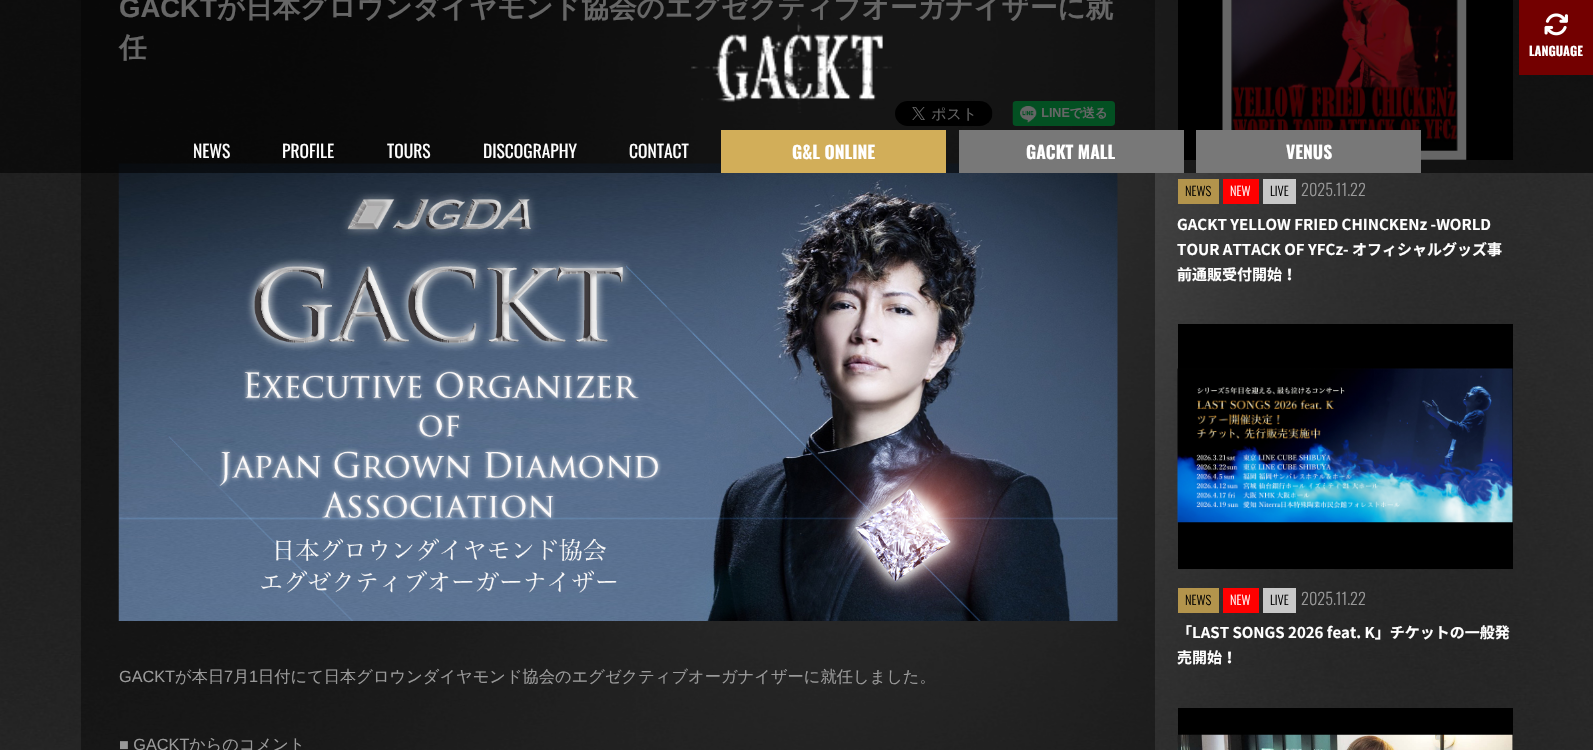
void draw(SkCanvas* canvas) {
    SkPaint paint;
    paint.setAntiAlias(true);
    auto face = [&](const char* family, int weight, float size, bool italic = false) {
        SkFontStyle style(weight, SkFontStyle::kNormal_Width,
            italic ? SkFontStyle::kItalic_Slant : SkFontStyle::kUpright_Slant);
        SkFont result(fontMgr->matchFamilyStyle(family, style), size);
        result.setSubpixel(true);
        return result;
    };
    auto write = [&](const char* s, float x, float y, const SkFont& font, SkColor color) {
        SkPaint ink(SkColor4f::FromColor(color));
        ink.setAntiAlias(true);
        canvas->drawString(s, x, y, font, ink);
    };
    auto block = [&](float x, float y, float w, float h, SkColor color) {
        SkPaint ink(SkColor4f::FromColor(color));
        ink.setAntiAlias(true);
        canvas->drawRect(SkRect::MakeXYWH(x, y, w, h), ink);
    };
    auto paste = [&](const char* path, float x, float y, float w, float h) {
        auto image = SkImages::DeferredFromEncodedData(SkData::MakeFromFileName(path));
        canvas->drawImageRect(image, SkRect::MakeXYWH(x, y, w, h), SkSamplingOptions());
    };
    canvas->clear(SK_ColorWHITE);
    paste("pic1.png", 0, 0, 1593, 750);
    block(81, 0, 1074, 750, SkColorSetARGB(102, 0, 0, 0));
    auto kFont1 = face("Liberation Sans", 700, 27.5f);
    write("GACKT", 119, 17, kFont1, SK_ColorWHITE);
    auto kFont2 = face("WenQuanYi Zen Hei", 700, 27.5f);
    write("が日本グロウンダイヤモンド協会のエグゼクティブオーガナイザーに就", 217, 17, kFont2, SK_ColorWHITE);
    write("任", 119, 57, kFont2, SK_ColorWHITE);
    paste("pic2.png", 895, 101, 98, 25);
    paste("pic3.png", 1012, 101, 103, 25);
    paste("pic4.png", 118, 163, 1000, 458);
    auto kFont3 = face("Liberation Sans", 400, 16.25f);
    write("GACKT", 119, 682, kFont3, SkColorSetRGB(153, 153, 153));
    auto kFont4 = face("WenQuanYi Zen Hei", 500, 16.25f);
    write("が本日", 175, 682, kFont4, SkColorSetRGB(153, 153, 153));
    write("7", 224, 682, kFont3, SkColorSetRGB(153, 153, 153));
    write("月", 233, 682, kFont4, SkColorSetRGB(153, 153, 153));
    write("1", 249, 682, kFont3, SkColorSetRGB(153, 153, 153));
    write("日付にて日本グロウンダイヤモンド協会のエグゼクティブオーガナイザーに就任しました。", 258, 682, kFont4, SkColorSetRGB(153, 153, 153));
    write("■ GACKT", 119, 750, kFont3, SkColorSetRGB(153, 153, 153));
    write("からのコメント", 189, 750, kFont4, SkColorSetRGB(153, 153, 153));
    block(1178, 0, 335, 160, SK_ColorBLACK);
    paste("pic5.png", 1222, 0, 245, 160);
    block(1178, 179, 41, 25, SkColorSetRGB(179, 148, 76));
    auto kFont5 = face("Oswald", 300, 12.5f);
    write("NEWS", 1185, 196, kFont5, SK_ColorBLACK);
    block(1223, 179, 36, 25, SkColorSetRGB(255, 0, 0));
    write("NEW", 1230, 196, kFont5, SK_ColorWHITE);
    block(1263, 179, 33, 25, SkColorSetRGB(200, 200, 200));
    write("LIVE", 1270, 196, kFont5, SK_ColorBLACK);
    auto kFont6 = face("Oswald", 300, 16.25f);
    write("2025.11.22", 1301, 196, kFont6, SkColorSetRGB(153, 153, 153));
    auto kFont7 = face("Noto Sans JP", 700, 15);
    write("GACKT YELLOW FRIED CHINCKENz -WORLD", 1177, 230, kFont7, SK_ColorWHITE);
    write("TOUR ATTACK OF YFCz- オフィシャルグッズ事", 1177, 255, kFont7, SK_ColorWHITE);
    write("前通販受付開始！", 1177, 280, kFont7, SK_ColorWHITE);
    block(1178, 324, 335, 245, SK_ColorBLACK);
    paste("pic6.png", 1177, 368, 336, 155);
    block(1178, 588, 41, 25, SkColorSetRGB(179, 148, 76));
    write("NEWS", 1185, 605, kFont5, SK_ColorBLACK);
    block(1223, 588, 36, 25, SkColorSetRGB(255, 0, 0));
    write("NEW", 1230, 605, kFont5, SK_ColorWHITE);
    block(1263, 588, 33, 25, SkColorSetRGB(200, 200, 200));
    write("LIVE", 1270, 605, kFont5, SK_ColorBLACK);
    write("2025.11.22", 1301, 605, kFont6, SkColorSetRGB(153, 153, 153));
    write("「LAST SONGS 2026 feat. K」チケットの一般発", 1177, 638, kFont7, SK_ColorWHITE);
    write("売開始！", 1177, 663, kFont7, SK_ColorWHITE);
    block(1178, 708, 335, 42, SK_ColorBLACK);
    paste("pic7.png", 1177, 734, 336, 16);
    block(0, 0, 1593, 130, SkColorSetARGB(153, 0, 0, 0));
    paste("pic8.png", 691, 15, 201, 98);
    block(1519, 0, 74, 75, SkColorSetRGB(115, 0, 0));
    paste("pic9.png", 1544, 13, 24, 23);
    auto kFont8 = face("Oswald", 700, 12.5f);
    write("LANGUAGE", 1529, 56, kFont8, SK_ColorWHITE);
    block(0, 130, 1593, 43, SkColorSetARGB(153, 0, 0, 0));
    auto kFont9 = face("Oswald", 400, 17.5f);
    write("NEWS", 193, 158, kFont9, SK_ColorWHITE);
    write("PROFILE", 282, 158, kFont9, SK_ColorWHITE);
    write("TOURS", 387, 158, kFont9, SK_ColorWHITE);
    write("DISCOGRAPHY", 483, 158, kFont9, SK_ColorWHITE);
    write("CONTACT", 629, 158, kFont9, SK_ColorWHITE);
    block(721, 130, 225, 43, SkColorSetRGB(210, 174, 89));
    auto kFont10 = face("Oswald", 700, 17.5f);
    write("G&L ONLINE", 792, 159, kFont10, SK_ColorWHITE);
    block(959, 130, 225, 43, SkColorSetRGB(120, 120, 120));
    write("GACKT MALL", 1026, 159, kFont10, SK_ColorWHITE);
    block(1196, 130, 225, 43, SkColorSetRGB(120, 120, 120));
    write("VENUS", 1286, 159, kFont10, SK_ColorWHITE);
}
